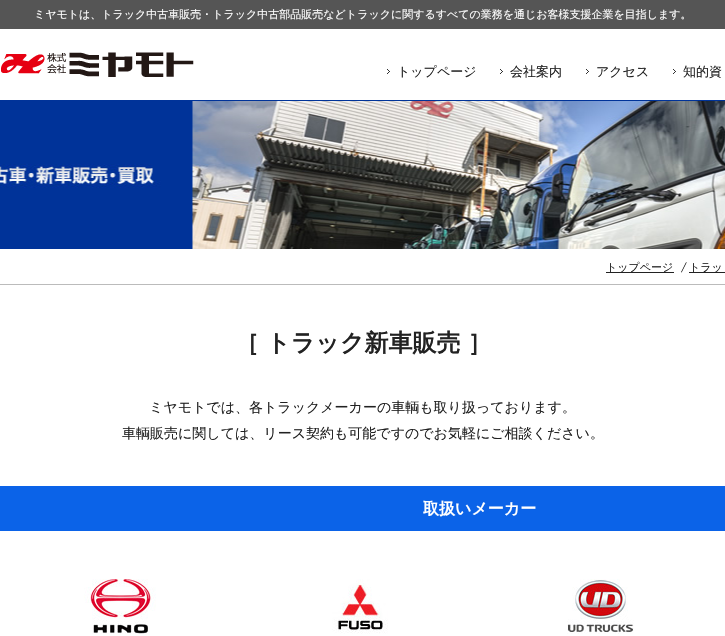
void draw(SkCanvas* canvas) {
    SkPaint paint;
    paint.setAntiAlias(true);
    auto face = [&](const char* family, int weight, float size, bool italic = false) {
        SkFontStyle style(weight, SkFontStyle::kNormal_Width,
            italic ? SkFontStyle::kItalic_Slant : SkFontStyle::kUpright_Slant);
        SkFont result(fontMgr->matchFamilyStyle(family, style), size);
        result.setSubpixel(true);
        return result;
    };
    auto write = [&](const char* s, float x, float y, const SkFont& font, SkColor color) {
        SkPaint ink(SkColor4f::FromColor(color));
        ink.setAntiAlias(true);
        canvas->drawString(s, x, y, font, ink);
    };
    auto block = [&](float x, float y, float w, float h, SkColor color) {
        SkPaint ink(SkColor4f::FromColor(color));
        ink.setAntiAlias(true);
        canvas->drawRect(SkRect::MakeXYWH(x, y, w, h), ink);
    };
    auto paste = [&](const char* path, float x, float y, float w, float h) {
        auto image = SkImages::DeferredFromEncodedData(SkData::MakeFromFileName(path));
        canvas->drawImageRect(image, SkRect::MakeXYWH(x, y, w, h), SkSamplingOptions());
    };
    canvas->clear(SK_ColorWHITE);
    block(0, 100, 725, 1, SkColorSetRGB(0, 51, 153));
    block(0, 0, 725, 29, SkColorSetRGB(85, 85, 85));
    auto kFont1 = face("WenQuanYi Zen Hei", 500, 11);
    write("ミヤモトは、トラック中古車販売・トラック中古部品販売などトラックに関するすべての業務を通じお客様支援企業を目指します。", 34, 18, kFont1, SK_ColorWHITE);
    paste("pic1.png", 1, 52, 193, 25);
    paste("pic2.png", 387, 69, 3, 5);
    auto kFont2 = face("WenQuanYi Zen Hei", 500, 13);
    write("トップページ", 397, 76, kFont2, SkColorSetRGB(34, 34, 34));
    paste("pic2.png", 500, 69, 3, 5);
    write("会社案内", 510, 76, kFont2, SkColorSetRGB(34, 34, 34));
    paste("pic2.png", 586, 69, 3, 5);
    write("アクセス", 596, 76, kFont2, SkColorSetRGB(34, 34, 34));
    paste("pic2.png", 673, 69, 3, 5);
    write("知的資", 683, 76, kFont2, SkColorSetRGB(34, 34, 34));
    paste("pic3.png", 0, 101, 725, 148);
    block(606, 272, 68, 1, SkColorSetRGB(34, 34, 34));
    write("トップページ", 606, 271, kFont1, SkColorSetRGB(34, 34, 34));
    auto kFont3 = face("Quicksand", 400, 11);
    write("/", 681, 271, kFont3, SkColorSetRGB(34, 34, 34));
    block(689, 272, 36, 1, SkColorSetRGB(34, 34, 34));
    write("トラッ", 689, 271, kFont1, SkColorSetRGB(34, 34, 34));
    block(0, 284, 725, 1, SkColorSetRGB(187, 187, 187));
    auto kFont4 = face("WenQuanYi Zen Hei", 700, 24);
    write("［ トラック新車販売 ］", 235, 351, kFont4, SkColorSetRGB(34, 34, 34));
    auto kFont5 = face("WenQuanYi Zen Hei", 500, 14);
    write("ミヤモトでは、各トラックメーカーの車輌も取り扱っております。", 149, 412, kFont5, SkColorSetRGB(34, 34, 34));
    write("車輌販売に関しては、リース契約も可能ですのでお気軽にご相談ください。", 122, 438, kFont5, SkColorSetRGB(34, 34, 34));
    block(0, 486, 725, 45, SkColorSetRGB(11, 99, 232));
    auto kFont6 = face("WenQuanYi Zen Hei", 700, 16);
    write("取扱いメーカー", 423, 514, kFont6, SK_ColorWHITE);
    paste("pic4.png", 84, 579, 72, 55);
    paste("pic5.png", 332, 579, 56, 55);
    paste("pic6.png", 567, 579, 67, 55);
}
